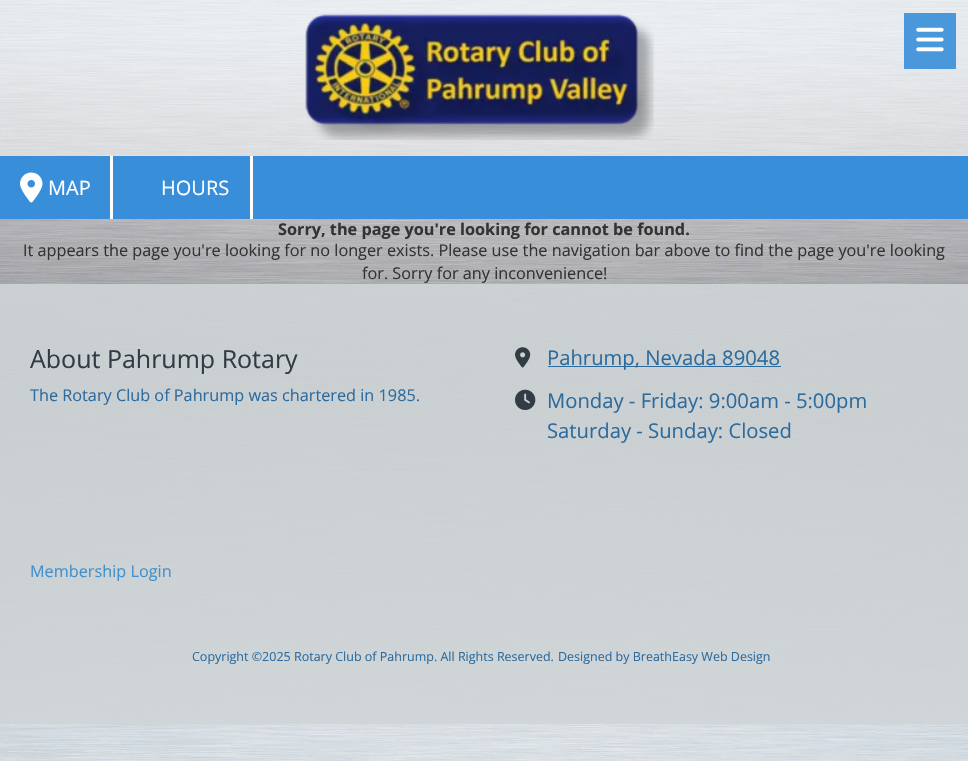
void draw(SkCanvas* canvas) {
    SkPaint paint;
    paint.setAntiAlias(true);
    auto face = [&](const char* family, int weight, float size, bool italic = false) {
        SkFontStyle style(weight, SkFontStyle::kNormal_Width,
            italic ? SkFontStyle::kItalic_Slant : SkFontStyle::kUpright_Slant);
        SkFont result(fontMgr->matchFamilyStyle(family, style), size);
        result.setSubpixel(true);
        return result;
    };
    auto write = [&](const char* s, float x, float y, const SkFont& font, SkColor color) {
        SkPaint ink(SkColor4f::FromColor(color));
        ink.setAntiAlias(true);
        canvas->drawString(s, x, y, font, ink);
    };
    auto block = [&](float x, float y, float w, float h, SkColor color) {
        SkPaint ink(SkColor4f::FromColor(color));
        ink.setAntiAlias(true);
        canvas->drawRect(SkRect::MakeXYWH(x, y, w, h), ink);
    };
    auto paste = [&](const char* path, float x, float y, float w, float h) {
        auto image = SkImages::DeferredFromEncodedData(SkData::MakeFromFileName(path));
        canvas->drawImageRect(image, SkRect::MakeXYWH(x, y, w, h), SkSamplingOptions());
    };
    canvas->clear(SK_ColorWHITE);
    paste("pic1.png", 0, 0, 968, 761);
    block(0, 0, 968, 156, SkColorSetARGB(117, 255, 255, 255));
    paste("pic2.png", 305, 13, 349, 127);
    block(904, 13, 52, 56, SkColorSetARGB(230, 56, 142, 217));
    paste("pic3.png", 916, 27, 28, 25);
    block(0, 156, 968, 63, SkColorSetRGB(56, 142, 217));
    block(110, 156, 3, 63, SK_ColorWHITE);
    paste("pic4.png", 20, 172, 23, 31);
    auto kFont1 = face("Open Sans", 400, 20);
    write("MAP", 48, 195, kFont1, SK_ColorWHITE);
    block(250, 156, 3, 63, SK_ColorWHITE);
    write("HOURS", 161, 195, kFont1, SK_ColorWHITE);
    auto kFont2 = face("Open Sans", 700, 16.25f);
    write("Sorry, the page you're looking for cannot be found.", 278, 235, kFont2, SkColorSetRGB(51, 51, 51));
    auto kFont3 = face("Open Sans", 400, 16.25f);
    write("It appears the page you're looking for no longer exists. Please use the navigation bar above to find the page you're looking", 23, 256, kFont3, SkColorSetRGB(51, 51, 51));
    write("for. Sorry for any inconvenience!", 362, 279, kFont3, SkColorSetRGB(51, 51, 51));
    block(0, 284, 968, 440, SkColorSetARGB(227, 207, 212, 214));
    auto kFont4 = face("Open Sans", 400, 25);
    write("About Pahrump Rotary", 30, 368, kFont4, SkColorSetRGB(50, 60, 69));
    write("The Rotary Club of Pahrump was chartered in 1985.", 30, 401, kFont3, SkColorSetRGB(44, 107, 158));
    write("Membership Login", 30, 577, kFont3, SkColorSetRGB(64, 144, 205));
    paste("pic5.png", 515, 347, 16, 21);
    block(548, 366, 233, 1, SkColorSetRGB(44, 107, 158));
    auto kFont5 = face("Open Sans", 400, 20.25f);
    write("Pahrump, Nevada 89048", 547, 365, kFont5, SkColorSetRGB(44, 107, 158));
    paste("pic6.png", 515, 389, 21, 21);
    write("Monday - Friday: 9:00am - 5:00pm", 547, 408, kFont5, SkColorSetRGB(44, 107, 158));
    write("Saturday - Sunday: Closed", 547, 438, kFont5, SkColorSetRGB(44, 107, 158));
    auto kFont6 = face("Open Sans", 400, 12.5f);
    write("Copyright ©2025 Rotary Club of Pahrump. All Rights Reserved.", 192, 661, kFont6, SkColorSetRGB(44, 107, 158));
    write("Designed by BreathEasy Web Design", 558, 661, kFont6, SkColorSetRGB(44, 107, 158));
}
